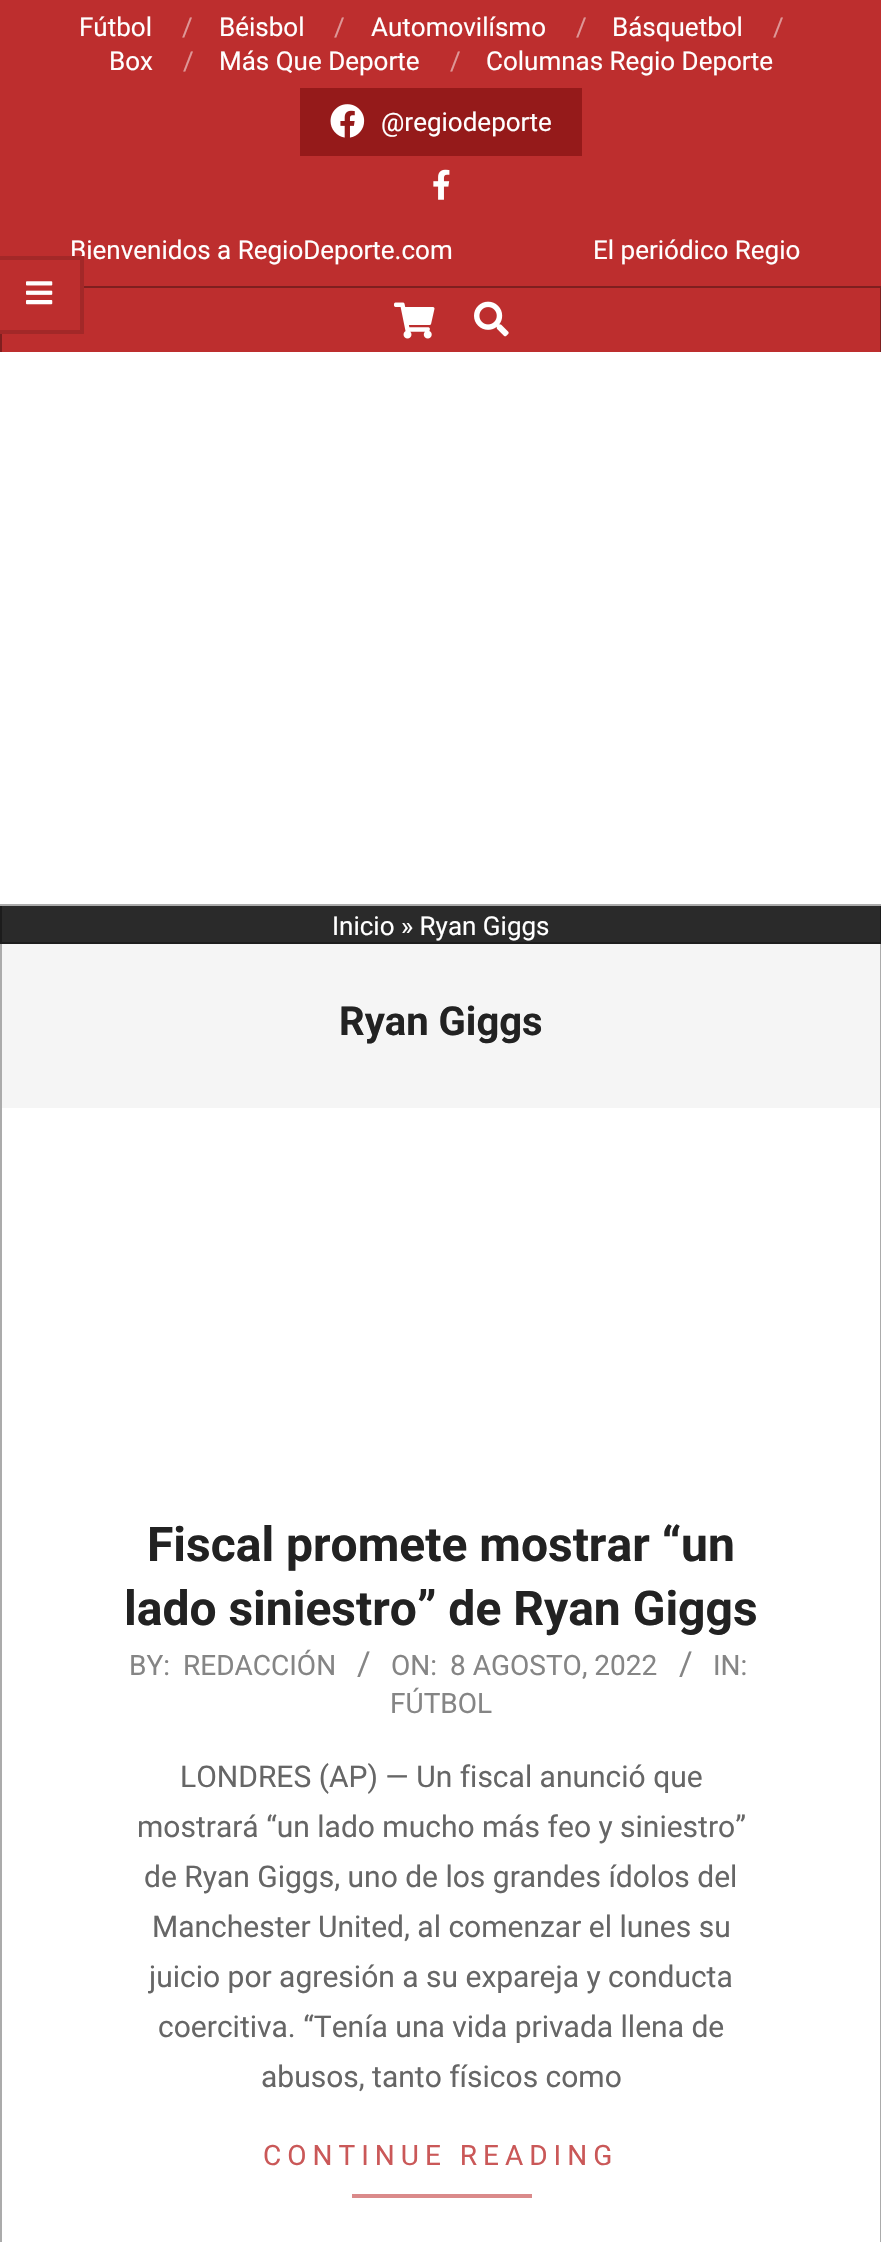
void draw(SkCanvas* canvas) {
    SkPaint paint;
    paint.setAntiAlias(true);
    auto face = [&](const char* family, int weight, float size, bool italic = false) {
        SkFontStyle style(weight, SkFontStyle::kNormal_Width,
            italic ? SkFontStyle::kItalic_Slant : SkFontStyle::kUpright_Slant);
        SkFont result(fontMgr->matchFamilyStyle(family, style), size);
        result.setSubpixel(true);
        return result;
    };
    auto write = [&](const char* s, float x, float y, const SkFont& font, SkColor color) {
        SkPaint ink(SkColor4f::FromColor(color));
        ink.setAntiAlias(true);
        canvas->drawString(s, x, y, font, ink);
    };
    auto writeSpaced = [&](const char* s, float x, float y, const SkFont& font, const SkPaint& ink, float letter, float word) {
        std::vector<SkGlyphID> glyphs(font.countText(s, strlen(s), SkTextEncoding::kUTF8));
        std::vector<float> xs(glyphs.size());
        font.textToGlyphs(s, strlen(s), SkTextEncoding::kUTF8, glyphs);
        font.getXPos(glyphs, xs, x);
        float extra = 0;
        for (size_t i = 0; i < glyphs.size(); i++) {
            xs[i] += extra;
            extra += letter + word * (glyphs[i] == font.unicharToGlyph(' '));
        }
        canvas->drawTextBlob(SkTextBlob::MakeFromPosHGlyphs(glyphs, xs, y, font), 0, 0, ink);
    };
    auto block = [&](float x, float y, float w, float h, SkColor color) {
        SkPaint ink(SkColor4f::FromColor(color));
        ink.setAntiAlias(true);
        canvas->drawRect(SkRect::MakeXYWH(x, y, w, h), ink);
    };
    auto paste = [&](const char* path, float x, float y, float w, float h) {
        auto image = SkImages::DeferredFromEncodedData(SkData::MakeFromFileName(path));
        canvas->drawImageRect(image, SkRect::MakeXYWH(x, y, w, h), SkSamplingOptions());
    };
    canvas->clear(SK_ColorWHITE);
    block(0, 0, 881, 286, SkColorSetRGB(189, 46, 46));
    auto kFont1 = face("Roboto", 400, 26);
    write("Fútbol", 79, 36, kFont1, SK_ColorWHITE);
    write("/", 182, 36, kFont1, SkColorSetRGB(222, 151, 151));
    write("Béisbol", 219, 36, kFont1, SK_ColorWHITE);
    write("/", 334, 36, kFont1, SkColorSetRGB(222, 151, 151));
    write("Automovilísmo", 371, 36, kFont1, SK_ColorWHITE);
    write("/", 576, 36, kFont1, SkColorSetRGB(222, 151, 151));
    write("Básquetbol", 612, 36, kFont1, SK_ColorWHITE);
    write("/", 773, 36, kFont1, SkColorSetRGB(222, 151, 151));
    write("Box", 109, 70, kFont1, SK_ColorWHITE);
    write("/", 183, 70, kFont1, SkColorSetRGB(222, 151, 151));
    write("Más Que Deporte", 219, 70, kFont1, SK_ColorWHITE);
    write("/", 450, 70, kFont1, SkColorSetRGB(222, 151, 151));
    write("Columnas Regio Deporte", 486, 70, kFont1, SK_ColorWHITE);
    block(300, 88, 282, 68, SkColorSetRGB(149, 26, 26));
    paste("pic1.png", 330, 104, 35, 34);
    write("@regiodeporte", 381, 131, kFont1, SK_ColorWHITE);
    paste("pic2.png", 433, 169, 17, 31);
    write("Bienvenidos a RegioDeporte.com", 70, 259, kFont1, SK_ColorWHITE);
    write("El periódico Regio", 593, 259, kFont1, SK_ColorWHITE);
    block(2, 288, 878, 64, SkColorSetRGB(189, 46, 46));
    block(880, 286, 1, 66, SkColorSetRGB(127, 31, 31));
    block(0, 334, 2, 18, SkColorSetRGB(127, 31, 31));
    block(0, 256, 84, 78, SkColorSetRGB(189, 46, 46));
    paint.setColor(SkColorSetRGB(163, 40, 40));
    canvas->drawPath(SkPathBuilder().moveTo(0, 256).lineTo(84, 256).lineTo(80, 260).lineTo(0, 260).close().detach(), paint);
    paint.setColor(SkColorSetARGB(36, 0, 0, 0));
    canvas->drawPath(SkPathBuilder().moveTo(84, 256).lineTo(84, 334).lineTo(80, 330).lineTo(80, 260).close().detach(), paint);
    canvas->drawPath(SkPathBuilder().moveTo(84, 334).lineTo(0, 334).lineTo(0, 330).lineTo(80, 330).close().detach(), paint);
    paste("pic3.png", 26, 281, 27, 24);
    block(84, 286, 796, 2, SkColorSetRGB(127, 31, 31));
    paste("pic4.png", 394, 302, 41, 37);
    paste("pic5.png", 474, 301, 35, 36);
    block(0, 904, 881, 2, SkColorSetRGB(171, 171, 171));
    block(0, 906, 881, 38, SkColorSetRGB(42, 42, 42));
    paint.setColor(SkColorSetRGB(28, 28, 28));
    canvas->drawPath(SkPathBuilder().moveTo(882, 906).lineTo(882, 944).lineTo(880, 942).lineTo(880, 906).close().detach(), paint);
    paint.setColor(SkColorSetARGB(84, 0, 0, 0));
    canvas->drawPath(SkPathBuilder().moveTo(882, 944).lineTo(0, 944).lineTo(2, 942).lineTo(880, 942).close().detach(), paint);
    canvas->drawPath(SkPathBuilder().moveTo(0, 944).lineTo(0, 906).lineTo(2, 906).lineTo(2, 942).close().detach(), paint);
    write("Inicio » Ryan Giggs", 332, 935, kFont1, SK_ColorWHITE);
    block(880, 944, 1, 1298, SkColorSetRGB(171, 171, 171));
    block(0, 944, 2, 1298, SkColorSetRGB(171, 171, 171));
    block(2, 944, 878, 164, SkColorSetRGB(245, 245, 245));
    auto kFont2 = face("Roboto", 700, 40);
    write("Ryan Giggs", 339, 1035, kFont2, SkColorSetRGB(34, 34, 34));
    auto kFont3 = face("Roboto", 700, 48);
    write("Fiscal promete mostrar “un", 147, 1561, kFont3, SkColorSetRGB(34, 34, 34));
    write("lado siniestro” de Ryan Giggs", 124, 1625, kFont3, SkColorSetRGB(34, 34, 34));
    auto kFont4 = face("Roboto", 400, 28);
    write("BY:", 129, 1675, kFont4, SkColorSetRGB(133, 133, 133));
    write("REDACCIÓN", 183, 1675, kFont4, SkColorSetRGB(133, 133, 133));
    auto kFont5 = face("Roboto", 400, 33);
    write("/", 357, 1675, kFont5, SkColorSetRGB(133, 133, 133));
    write("ON:", 391, 1675, kFont4, SkColorSetRGB(133, 133, 133));
    write("8 AGOSTO, 2022", 450, 1675, kFont4, SkColorSetRGB(133, 133, 133));
    write("/", 679, 1675, kFont5, SkColorSetRGB(133, 133, 133));
    write("IN:", 713, 1675, kFont4, SkColorSetRGB(133, 133, 133));
    write("FÚTBOL", 390, 1713, kFont4, SkColorSetRGB(133, 133, 133));
    auto kFont6 = face("Roboto", 400, 30);
    write("LONDRES (AP) — Un fiscal anunció que", 180, 1787, kFont6, SkColorSetRGB(102, 102, 102));
    write("mostrará “un lado mucho más feo y siniestro”", 137, 1837, kFont6, SkColorSetRGB(102, 102, 102));
    write("de Ryan Giggs, uno de los grandes ídolos del", 144, 1887, kFont6, SkColorSetRGB(102, 102, 102));
    write("Manchester United, al comenzar el lunes su", 152, 1937, kFont6, SkColorSetRGB(102, 102, 102));
    write("juicio por agresión a su expareja y conducta", 149, 1987, kFont6, SkColorSetRGB(102, 102, 102));
    write("coercitiva. “Tenía una vida privada llena de", 158, 2037, kFont6, SkColorSetRGB(102, 102, 102));
    write("abusos, tanto físicos como", 261, 2087, kFont6, SkColorSetRGB(102, 102, 102));
    paint.setColor(SkColorSetRGB(202, 88, 88));
    writeSpaced("CONTINUE READING", 263, 2165, kFont4, paint, 6, 0);
    block(352, 2194, 180, 4, SkColorSetRGB(218, 138, 138));
}
